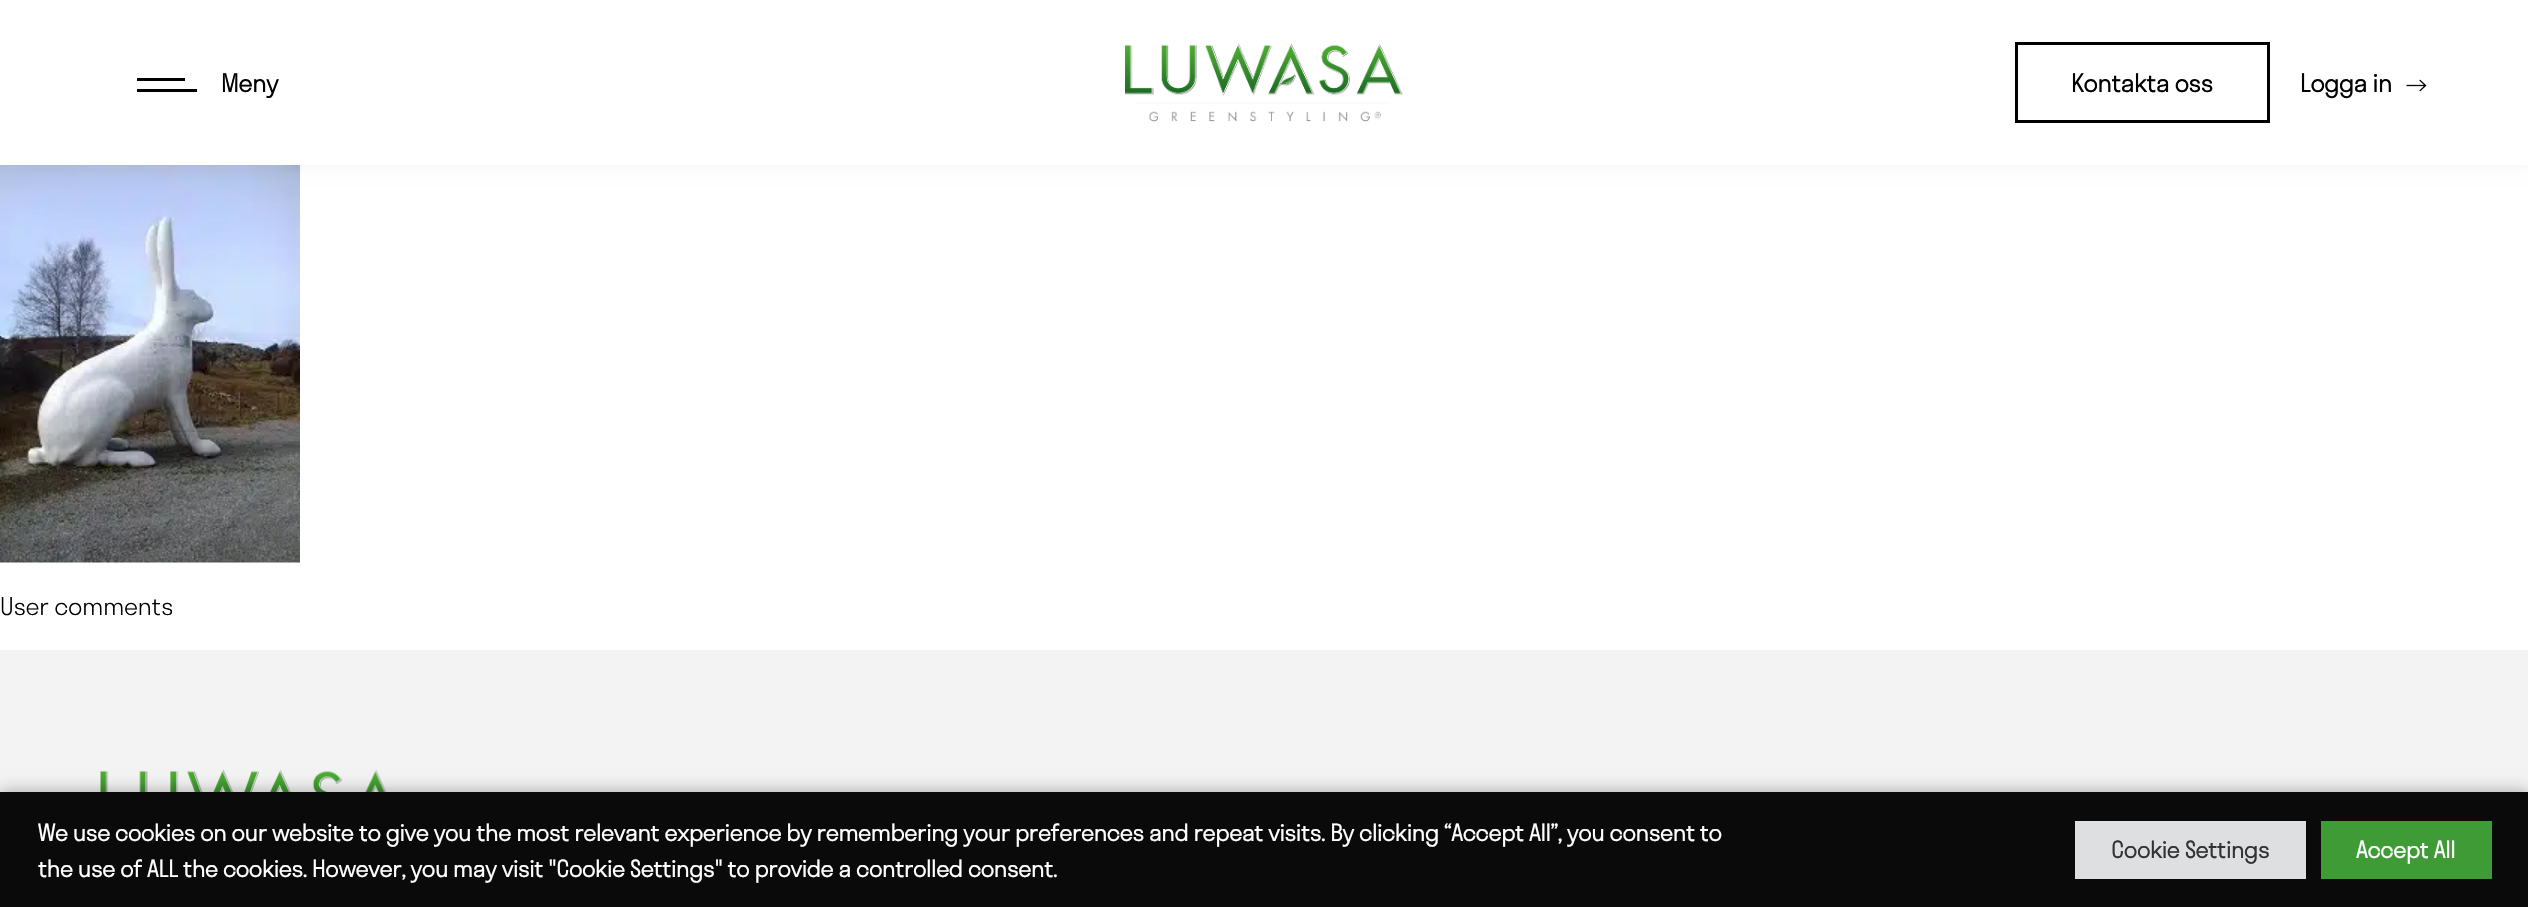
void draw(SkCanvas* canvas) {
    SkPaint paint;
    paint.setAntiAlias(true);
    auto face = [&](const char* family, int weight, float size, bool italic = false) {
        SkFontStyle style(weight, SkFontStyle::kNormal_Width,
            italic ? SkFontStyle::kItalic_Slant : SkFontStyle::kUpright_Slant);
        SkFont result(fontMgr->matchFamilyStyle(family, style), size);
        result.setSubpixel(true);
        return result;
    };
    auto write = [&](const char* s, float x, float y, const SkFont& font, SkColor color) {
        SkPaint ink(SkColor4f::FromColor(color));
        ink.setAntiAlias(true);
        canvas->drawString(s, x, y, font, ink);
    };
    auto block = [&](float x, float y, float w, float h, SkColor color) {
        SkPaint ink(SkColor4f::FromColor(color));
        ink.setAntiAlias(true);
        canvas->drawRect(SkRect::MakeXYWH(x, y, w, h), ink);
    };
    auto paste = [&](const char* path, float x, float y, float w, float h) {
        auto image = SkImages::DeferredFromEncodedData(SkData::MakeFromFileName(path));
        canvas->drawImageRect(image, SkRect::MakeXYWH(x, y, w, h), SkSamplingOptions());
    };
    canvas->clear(SK_ColorWHITE);
    paste("pic3.png", 0, 165, 300, 398);
    paint.setColor(SkColorSetARGB(13, 0, 0, 0));
    paint.setMaskFilter(SkMaskFilter::MakeBlur(kNormal_SkBlurStyle, 7.5f));
    canvas->drawRect(SkRect::MakeXYWH(0, 0, 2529, 165), paint);
    paint.setMaskFilter(nullptr);
    block(0, 0, 2528, 165, SK_ColorWHITE);
    block(137, 89, 60, 3, SK_ColorBLACK);
    block(137, 78, 48, 3, SK_ColorBLACK);
    auto kFont1 = face("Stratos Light", 700, 24);
    write("Meny", 221, 92, kFont1, SK_ColorBLACK);
    paste("pic1.png", 1125, 43, 278, 79);
    paint.setStyle(SkPaint::kStroke_Style);
    paint.setStrokeWidth(3);
    paint.setColor(SK_ColorBLACK);
    canvas->drawRect(SkRect::MakeXYWH(2016.5f, 43.5f, 252, 78), paint);
    write("Kontakta oss", 2071, 92, kFont1, SK_ColorBLACK);
    write("Logga in", 2300, 92, kFont1, SK_ColorBLACK);
    paste("pic2.png", 2406, 79, 21, 13);
    auto kFont2 = face("Stratos Light", 300, 24);
    write("User comments", 0, 615, kFont2, SK_ColorBLACK);
    block(0, 650, 2528, 142, SkColorSetRGB(243, 243, 243));
    paste("pic4.png", 100, 769, 287, 23);
    paint.setStyle(SkPaint::kFill_Style);
    paint.setColor(SkColorSetARGB(77, 0, 0, 0));
    paint.setMaskFilter(SkMaskFilter::MakeBlur(kNormal_SkBlurStyle, 7.5f));
    canvas->drawRect(SkRect::MakeXYWH(0, 791, 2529, 115), paint);
    paint.setMaskFilter(nullptr);
    block(0, 792, 2528, 115, SkColorSetRGB(10, 10, 10));
    auto kFont3 = face("Stratos Light", 700, 22.5f);
    write("We use cookies on our website to give you the most relevant experience by remembering your preferences and repeat visits. By clicking “Accept All”, you consent to", 38, 841, kFont3, SK_ColorWHITE);
    write("the use of ALL the cookies. However, you may visit \"Cookie Settings\" to provide a controlled consent.", 38, 877, kFont3, SK_ColorWHITE);
    block(2075, 821, 231, 58, SkColorSetRGB(222, 223, 224));
    write("Cookie Settings", 2111, 858, kFont3, SkColorSetRGB(51, 51, 51));
    block(2321, 821, 171, 58, SkColorSetRGB(62, 155, 54));
    write("Accept All", 2356, 858, kFont3, SK_ColorWHITE);
}
